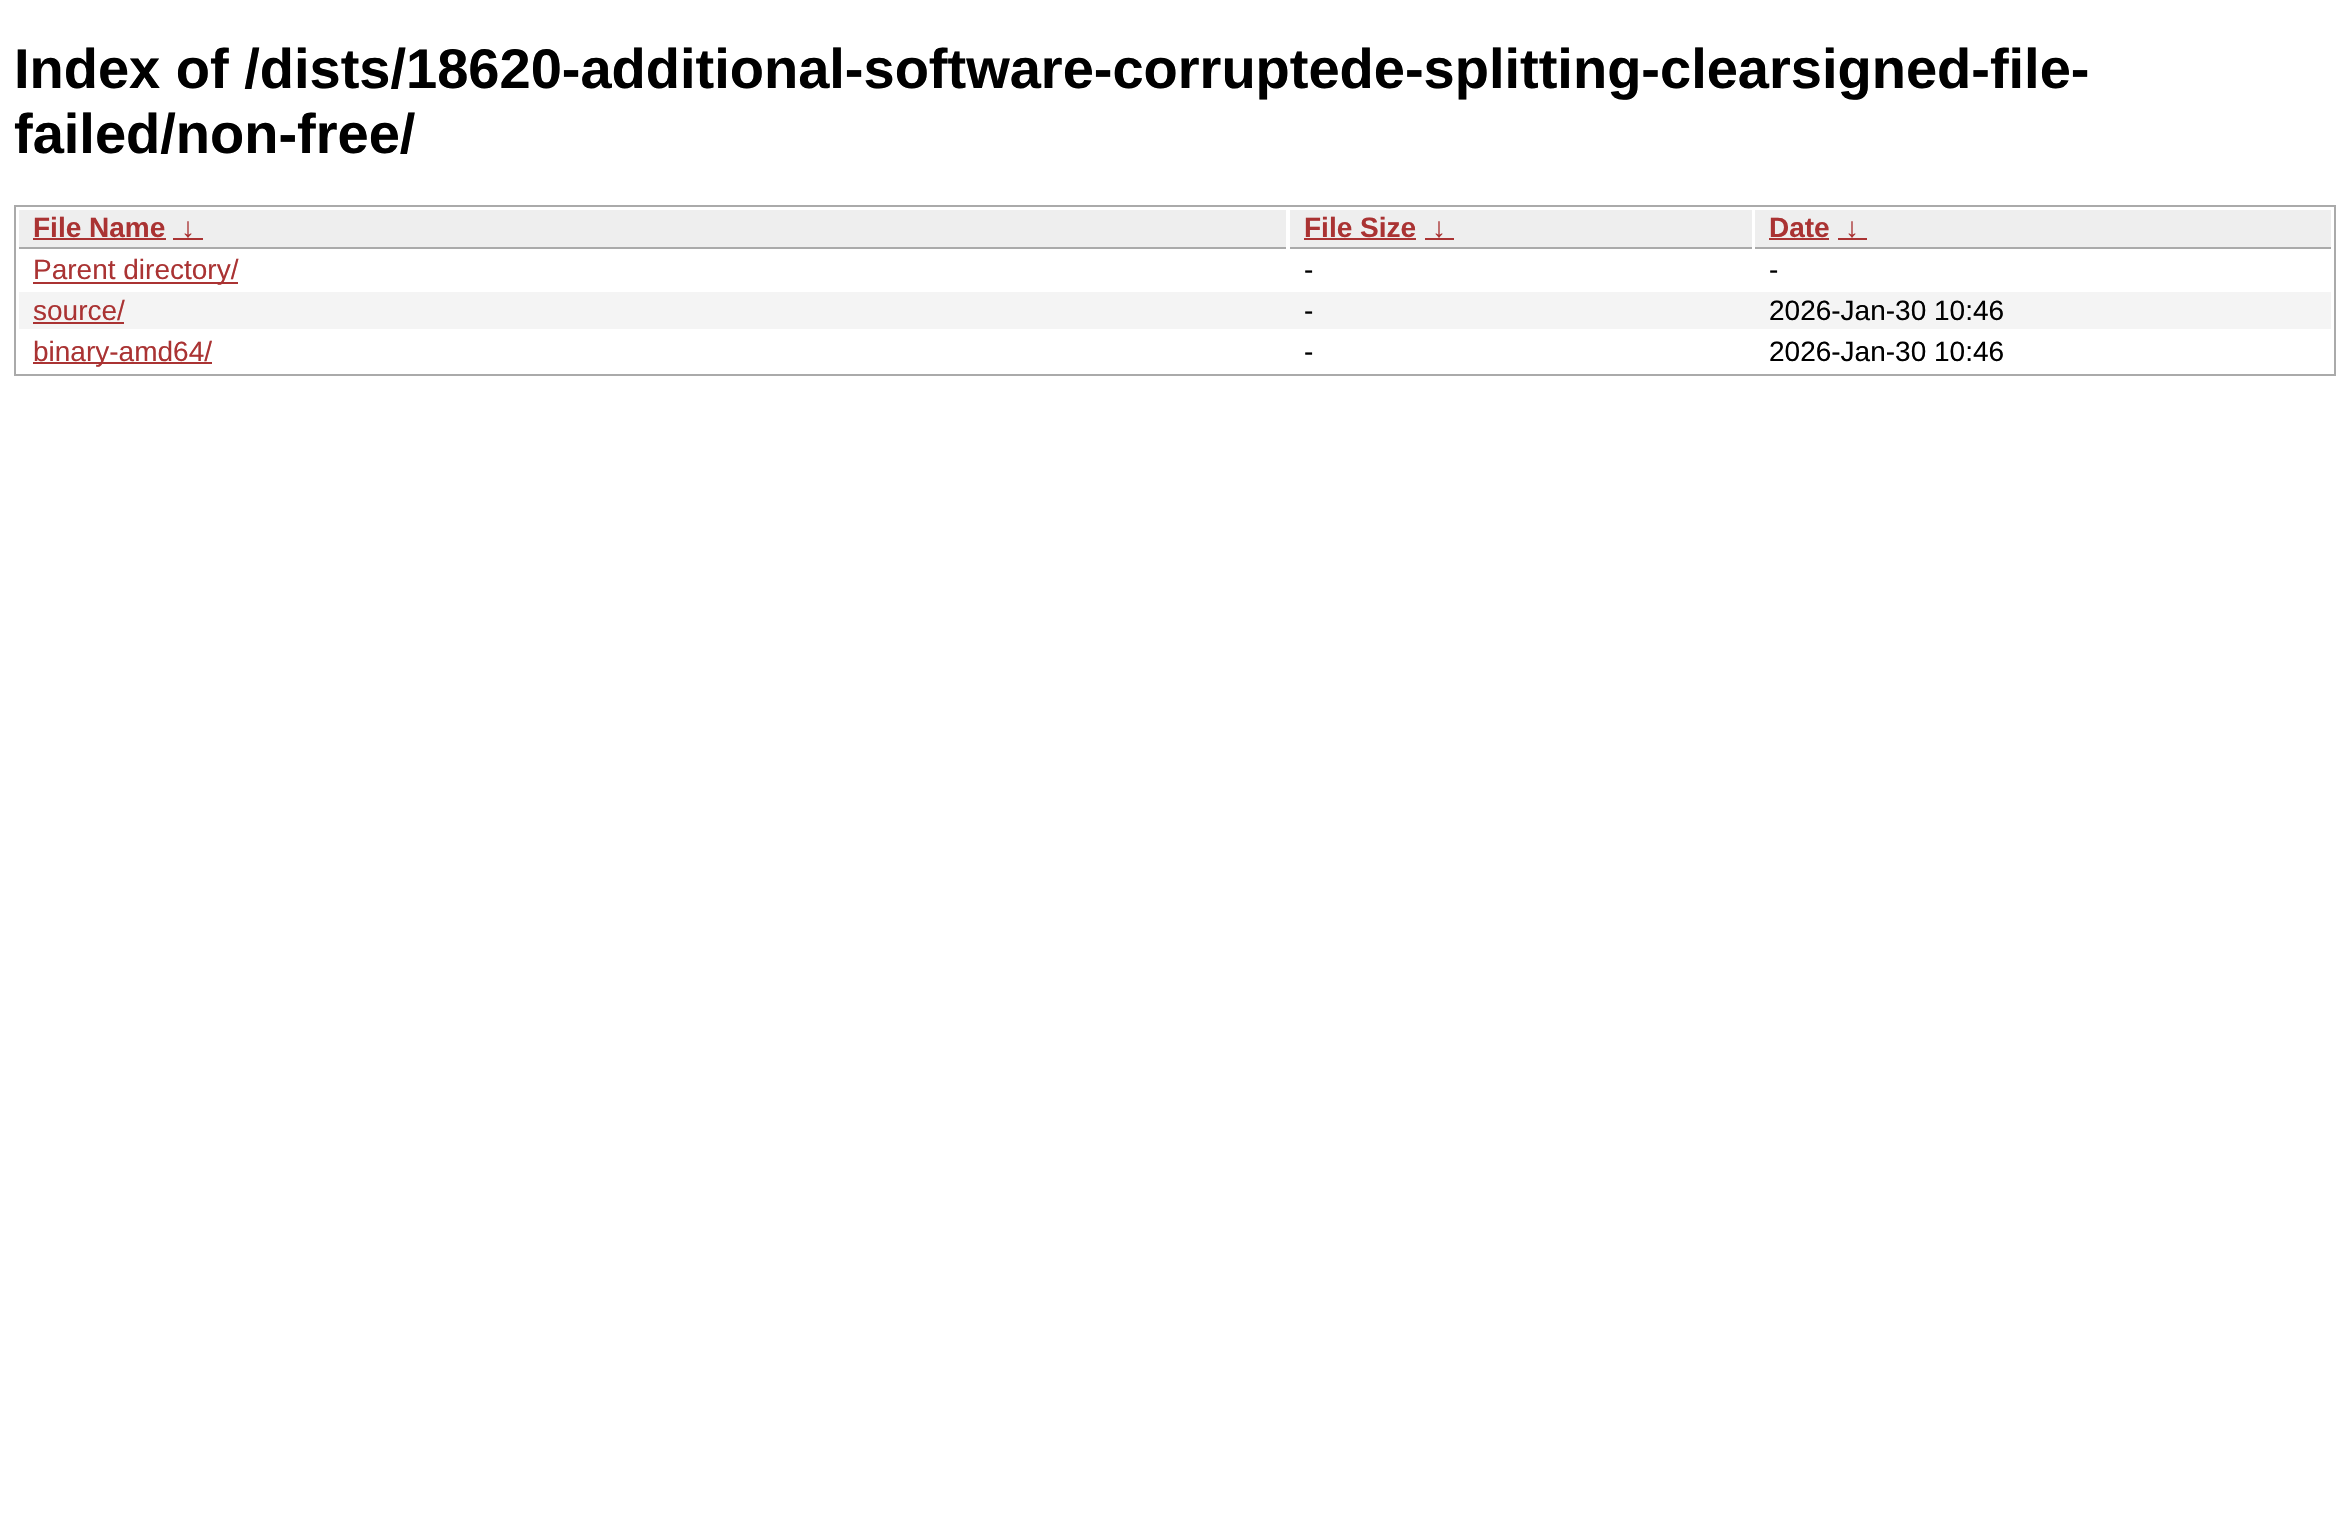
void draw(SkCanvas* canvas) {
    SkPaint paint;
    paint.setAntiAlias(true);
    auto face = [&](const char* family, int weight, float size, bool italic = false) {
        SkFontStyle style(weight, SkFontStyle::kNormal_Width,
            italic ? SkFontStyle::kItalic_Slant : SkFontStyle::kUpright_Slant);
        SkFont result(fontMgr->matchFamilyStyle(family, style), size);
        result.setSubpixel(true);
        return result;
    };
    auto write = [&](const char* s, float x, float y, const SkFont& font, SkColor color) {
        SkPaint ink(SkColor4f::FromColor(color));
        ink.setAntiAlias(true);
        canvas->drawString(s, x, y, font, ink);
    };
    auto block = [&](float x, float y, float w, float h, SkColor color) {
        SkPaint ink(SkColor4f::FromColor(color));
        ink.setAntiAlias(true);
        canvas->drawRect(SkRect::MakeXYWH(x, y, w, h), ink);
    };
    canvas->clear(SK_ColorWHITE);
    auto kFont1 = face("Liberation Sans", 700, 56);
    write("Index of /dists/18620-additional-software-corruptede-splitting-clearsigned-file-", 14, 88, kFont1, SK_ColorBLACK);
    write("failed/non-free/", 14, 153, kFont1, SK_ColorBLACK);
    paint.setStyle(SkPaint::kStroke_Style);
    paint.setStrokeWidth(2);
    paint.setColor(SkColorSetRGB(170, 170, 170));
    canvas->drawRect(SkRect::MakeXYWH(15, 206, 2320, 169), paint);
    block(19, 210, 1267, 37, SkColorSetRGB(238, 238, 238));
    block(19, 247, 1267, 2, SkColorSetRGB(170, 170, 170));
    auto kFont2 = face("Liberation Sans", 700, 28);
    write("File Name", 33, 237, kFont2, SkColorSetRGB(170, 51, 51));
    block(33, 238, 133, 2, SkColorSetRGB(170, 51, 51));
    write("↓", 181, 237, kFont2, SkColorSetRGB(170, 51, 51));
    block(173, 238, 30, 2, SkColorSetRGB(170, 51, 51));
    block(1290, 210, 462, 37, SkColorSetRGB(238, 238, 238));
    block(1290, 247, 462, 2, SkColorSetRGB(170, 170, 170));
    write("File Size", 1304, 237, kFont2, SkColorSetRGB(170, 51, 51));
    block(1304, 238, 112, 2, SkColorSetRGB(170, 51, 51));
    write("↓", 1432, 237, kFont2, SkColorSetRGB(170, 51, 51));
    block(1425, 238, 29, 2, SkColorSetRGB(170, 51, 51));
    block(1755, 210, 576, 37, SkColorSetRGB(238, 238, 238));
    block(1755, 247, 576, 2, SkColorSetRGB(170, 170, 170));
    write("Date", 1769, 237, kFont2, SkColorSetRGB(170, 51, 51));
    block(1769, 238, 60, 2, SkColorSetRGB(170, 51, 51));
    write("↓", 1845, 237, kFont2, SkColorSetRGB(170, 51, 51));
    block(1838, 238, 29, 2, SkColorSetRGB(170, 51, 51));
    block(33, 282, 205, 2, SkColorSetRGB(170, 51, 51));
    auto kFont3 = face("Liberation Sans", 400, 28);
    write("Parent directory/", 33, 279, kFont3, SkColorSetRGB(170, 51, 51));
    write("-", 1304, 279, kFont3, SK_ColorBLACK);
    write("-", 1769, 279, kFont3, SK_ColorBLACK);
    block(19, 292, 2312, 37, SkColorSetRGB(244, 244, 244));
    write("source/", 33, 320, kFont3, SkColorSetRGB(170, 51, 51));
    block(33, 322, 91, 2, SkColorSetRGB(170, 51, 51));
    write("-", 1304, 320, kFont3, SK_ColorBLACK);
    write("2026-Jan-30 10:46", 1769, 320, kFont3, SK_ColorBLACK);
    block(33, 362, 179, 2, SkColorSetRGB(170, 51, 51));
    write("binary-amd64/", 33, 361, kFont3, SkColorSetRGB(170, 51, 51));
    write("-", 1304, 361, kFont3, SK_ColorBLACK);
    write("2026-Jan-30 10:46", 1769, 361, kFont3, SK_ColorBLACK);
}
